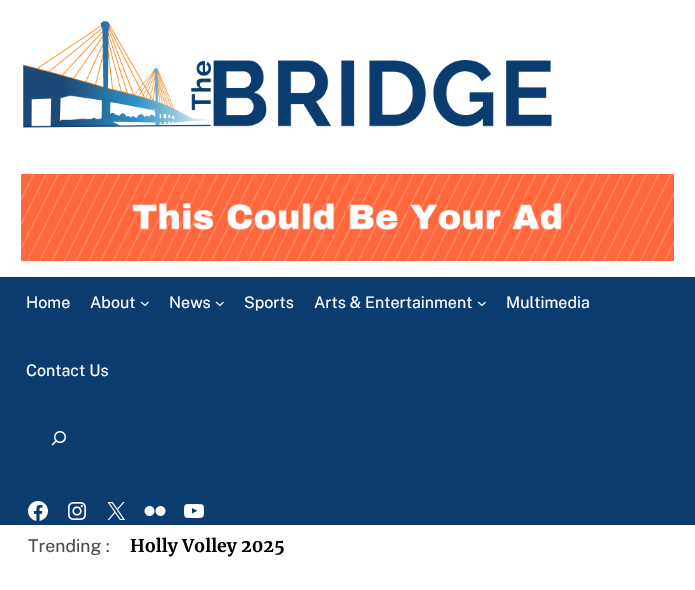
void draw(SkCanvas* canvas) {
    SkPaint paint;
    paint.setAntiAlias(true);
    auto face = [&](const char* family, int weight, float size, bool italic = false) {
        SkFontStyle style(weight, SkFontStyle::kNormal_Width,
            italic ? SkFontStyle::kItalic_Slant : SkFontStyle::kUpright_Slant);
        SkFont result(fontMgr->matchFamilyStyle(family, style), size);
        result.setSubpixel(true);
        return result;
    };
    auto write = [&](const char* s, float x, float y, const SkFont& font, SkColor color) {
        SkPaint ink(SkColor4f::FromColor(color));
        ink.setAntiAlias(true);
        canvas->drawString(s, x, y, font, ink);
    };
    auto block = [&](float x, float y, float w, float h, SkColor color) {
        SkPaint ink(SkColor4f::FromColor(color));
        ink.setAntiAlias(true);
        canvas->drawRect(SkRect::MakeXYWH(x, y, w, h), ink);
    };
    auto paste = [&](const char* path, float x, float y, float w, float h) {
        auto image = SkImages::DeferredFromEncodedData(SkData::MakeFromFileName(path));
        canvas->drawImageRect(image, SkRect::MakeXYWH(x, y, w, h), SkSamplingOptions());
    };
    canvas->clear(SK_ColorWHITE);
    paste("pic1.png", 23, 21, 529, 107);
    paste("pic2.png", 21, 174, 653, 87);
    block(0, 277, 695, 248, SkColorSetRGB(10, 60, 111));
    auto kFont1 = face("Public Sans", 400, 16);
    write("Home", 26, 308, kFont1, SkColorSetRGB(254, 254, 254));
    write("About", 90, 308, kFont1, SkColorSetRGB(254, 254, 254));
    paint.setStyle(SkPaint::kStroke_Style);
    paint.setStrokeWidth(1.2f);
    paint.setColor(SkColorSetRGB(254, 254, 254));
    canvas->drawPath(SkPathBuilder().moveTo(141, 302).lineTo(145, 305.5f).lineTo(148.5f, 302).detach(), paint);
    write("News", 169, 308, kFont1, SkColorSetRGB(254, 254, 254));
    canvas->drawPath(SkPathBuilder().moveTo(216, 302).lineTo(220, 305.5f).lineTo(223.5f, 302).detach(), paint);
    write("Sports", 244, 308, kFont1, SkColorSetRGB(254, 254, 254));
    write("Arts & Entertainment", 314, 308, kFont1, SkColorSetRGB(254, 254, 254));
    canvas->drawPath(SkPathBuilder().moveTo(478, 302).lineTo(482, 305.5f).lineTo(485.5f, 302).detach(), paint);
    write("Multimedia", 506, 308, kFont1, SkColorSetRGB(254, 254, 254));
    write("Contact Us", 26, 376, kFont1, SkColorSetRGB(254, 254, 254));
    paste("pic3.png", 51, 431, 16, 15);
    paste("pic4.png", 28, 501, 20, 20);
    paste("pic5.png", 68, 502, 18, 18);
    paste("pic6.png", 107, 502, 18, 18);
    paste("pic7.png", 144, 506, 22, 10);
    paste("pic8.png", 184, 504, 20, 14);
    auto kFont2 = face("Public Sans", 400, 17.6f);
    write("Trending :", 28, 552, kFont2, SkColorSetRGB(77, 77, 77));
    auto kFont3 = face("Merriweather", 700, 17.6f);
    write("Holly Volley 2025", 130, 552, kFont3, SK_ColorBLACK);
}
